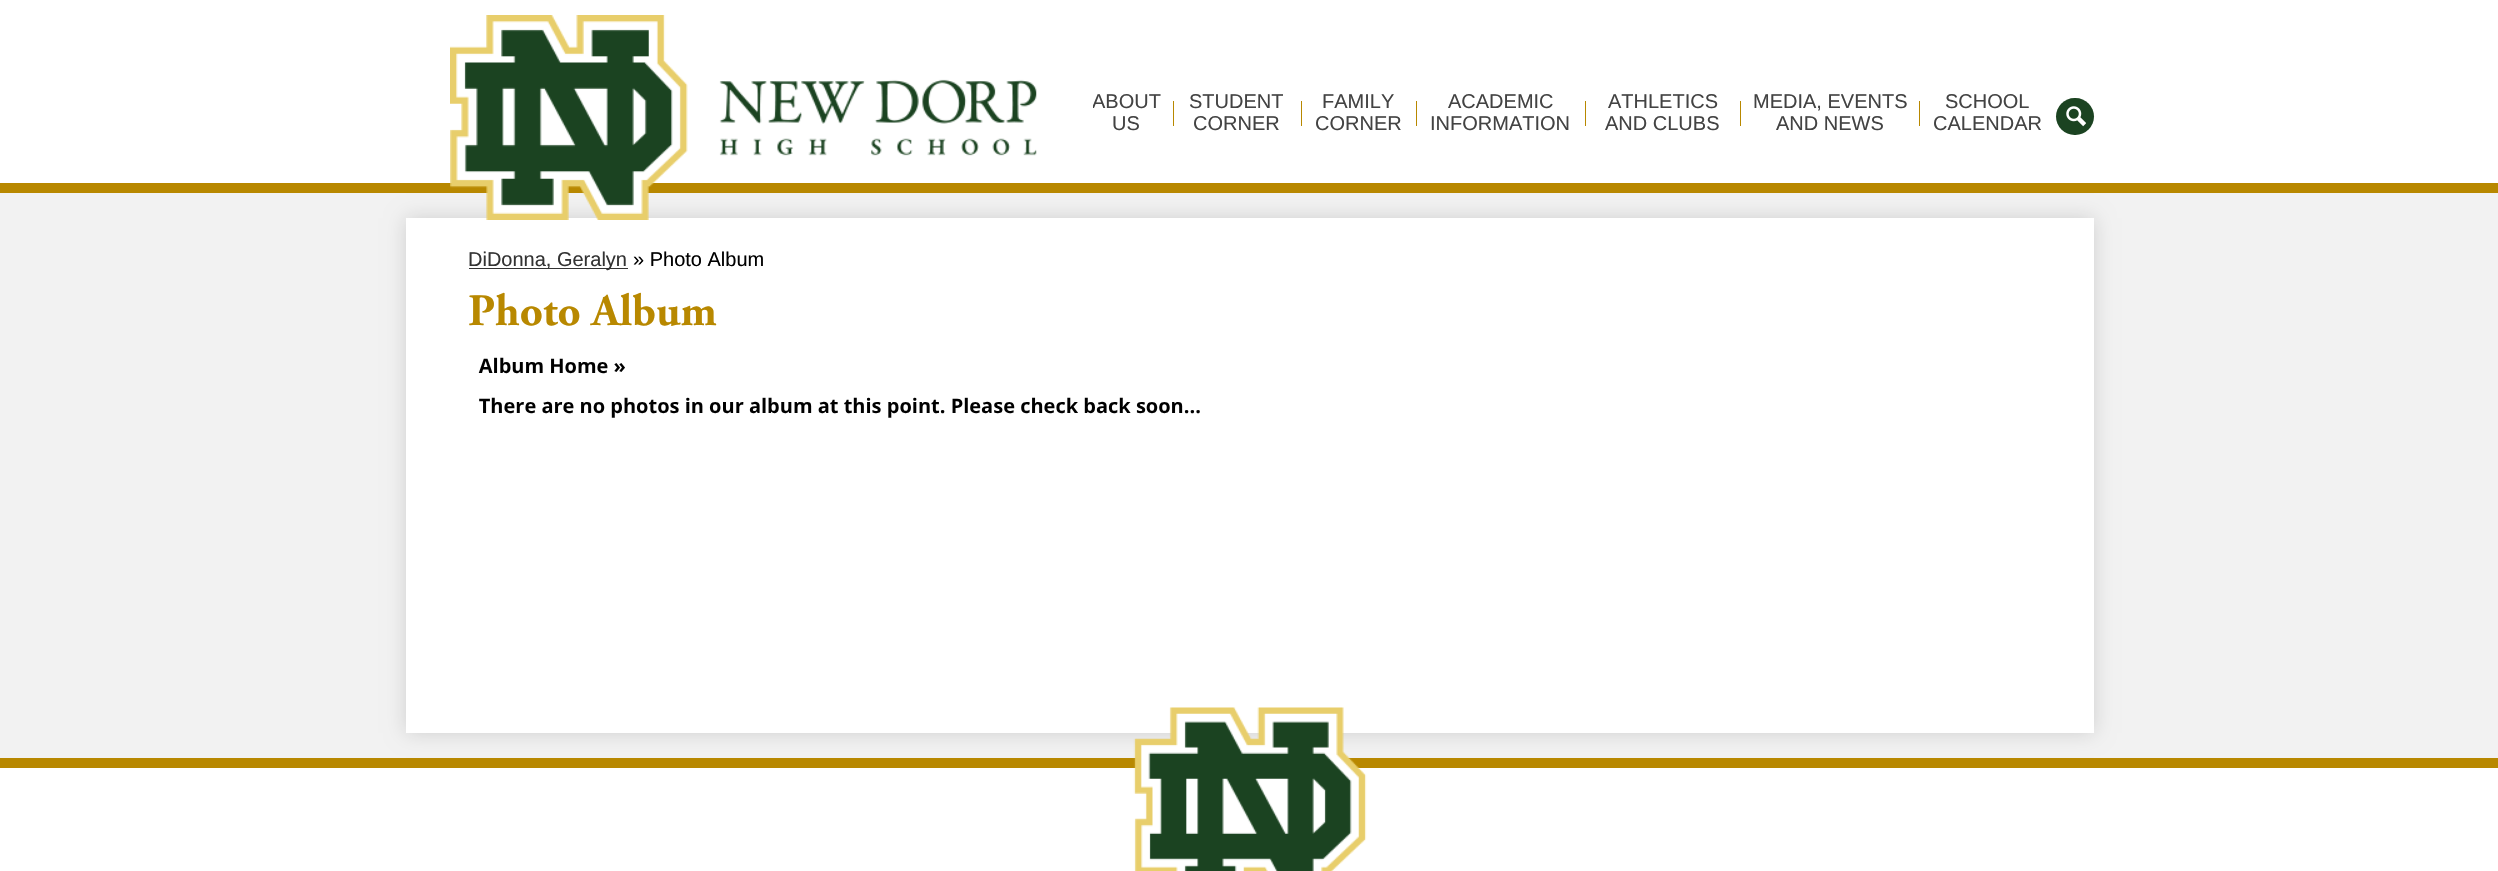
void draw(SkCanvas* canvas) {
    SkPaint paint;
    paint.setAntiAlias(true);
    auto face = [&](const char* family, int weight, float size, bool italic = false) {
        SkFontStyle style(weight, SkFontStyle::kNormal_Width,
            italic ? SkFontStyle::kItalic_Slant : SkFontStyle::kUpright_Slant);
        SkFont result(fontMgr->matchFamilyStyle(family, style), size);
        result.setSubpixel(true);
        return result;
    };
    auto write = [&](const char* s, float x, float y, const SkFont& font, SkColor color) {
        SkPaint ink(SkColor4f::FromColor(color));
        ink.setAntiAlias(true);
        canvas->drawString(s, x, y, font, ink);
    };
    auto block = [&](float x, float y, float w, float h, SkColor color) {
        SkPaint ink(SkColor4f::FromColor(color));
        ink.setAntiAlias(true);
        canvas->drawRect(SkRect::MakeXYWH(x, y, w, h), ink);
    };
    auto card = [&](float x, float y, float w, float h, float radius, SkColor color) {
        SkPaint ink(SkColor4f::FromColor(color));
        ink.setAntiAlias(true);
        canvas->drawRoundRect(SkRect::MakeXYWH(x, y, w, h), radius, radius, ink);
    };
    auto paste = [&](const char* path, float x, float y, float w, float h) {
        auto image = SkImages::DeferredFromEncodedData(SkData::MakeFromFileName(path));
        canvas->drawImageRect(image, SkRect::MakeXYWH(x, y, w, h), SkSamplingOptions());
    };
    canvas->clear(SkColorSetRGB(242, 242, 242));
    block(0, 0, 2498, 183, SK_ColorWHITE);
    paint.setColor(SkColorSetARGB(38, 0, 0, 0));
    paint.setMaskFilter(SkMaskFilter::MakeBlur(kNormal_SkBlurStyle, 9.5f));
    canvas->drawRect(SkRect::MakeXYWH(406, 218, 1688, 515), paint);
    paint.setMaskFilter(nullptr);
    block(0, 183, 2498, 10, SkColorSetRGB(184, 136, 0));
    block(406, 218, 1688, 515, SK_ColorWHITE);
    paste("pic1.png", 450, 15, 587, 205);
    canvas->save();
    canvas->clipRect(SkRect::MakeXYWH(1093, 90, 68, 65));
    auto kFont1 = face("Liberation Sans", 400, 20);
    write("ABOUT", 1092, 108, kFont1, SkColorSetRGB(67, 67, 67));
    canvas->restore();
    write("US", 1112, 130, kFont1, SkColorSetRGB(67, 67, 67));
    block(1173, 101, 1, 25, SkColorSetRGB(184, 136, 0));
    write("STUDENT", 1189, 108, kFont1, SkColorSetRGB(67, 67, 67));
    write("CORNER", 1193, 130, kFont1, SkColorSetRGB(67, 67, 67));
    block(1301, 101, 1, 25, SkColorSetRGB(184, 136, 0));
    write("FAMILY", 1322, 108, kFont1, SkColorSetRGB(67, 67, 67));
    write("CORNER", 1315, 130, kFont1, SkColorSetRGB(67, 67, 67));
    block(1416, 101, 1, 25, SkColorSetRGB(184, 136, 0));
    write("ACADEMIC", 1448, 108, kFont1, SkColorSetRGB(67, 67, 67));
    write("INFORMATION", 1430, 130, kFont1, SkColorSetRGB(67, 67, 67));
    block(1585, 101, 1, 25, SkColorSetRGB(184, 136, 0));
    write("ATHLETICS", 1608, 108, kFont1, SkColorSetRGB(67, 67, 67));
    write("AND CLUBS", 1605, 130, kFont1, SkColorSetRGB(67, 67, 67));
    block(1740, 101, 1, 25, SkColorSetRGB(184, 136, 0));
    write("MEDIA, EVENTS", 1753, 108, kFont1, SkColorSetRGB(67, 67, 67));
    write("AND NEWS", 1776, 130, kFont1, SkColorSetRGB(67, 67, 67));
    block(1919, 101, 1, 25, SkColorSetRGB(184, 136, 0));
    write("SCHOOL", 1945, 108, kFont1, SkColorSetRGB(67, 67, 67));
    write("CALENDAR", 1933, 130, kFont1, SkColorSetRGB(67, 67, 67));
    card(2056, 98, 38, 37, 18.5f, SkColorSetRGB(27, 67, 33));
    paste("pic2.png", 2066, 106, 20, 21);
    block(469, 268, 159, 1, SkColorSetRGB(51, 51, 51));
    write("DiDonna, Geralyn", 468, 266, kFont1, SkColorSetRGB(51, 51, 51));
    write("» Photo Album", 633, 266, kFont1, SK_ColorBLACK);
    auto kFont2 = face("Adobe Garamond", 700, 45);
    write("Photo Album", 468, 325, kFont2, SkColorSetRGB(184, 136, 0));
    paste("pic3.png", 478, 357, 722, 61);
    block(0, 768, 2498, 103, SK_ColorWHITE);
    block(0, 758, 2498, 10, SkColorSetRGB(184, 136, 0));
    paste("pic4.png", 1133, 707, 234, 164);
}
